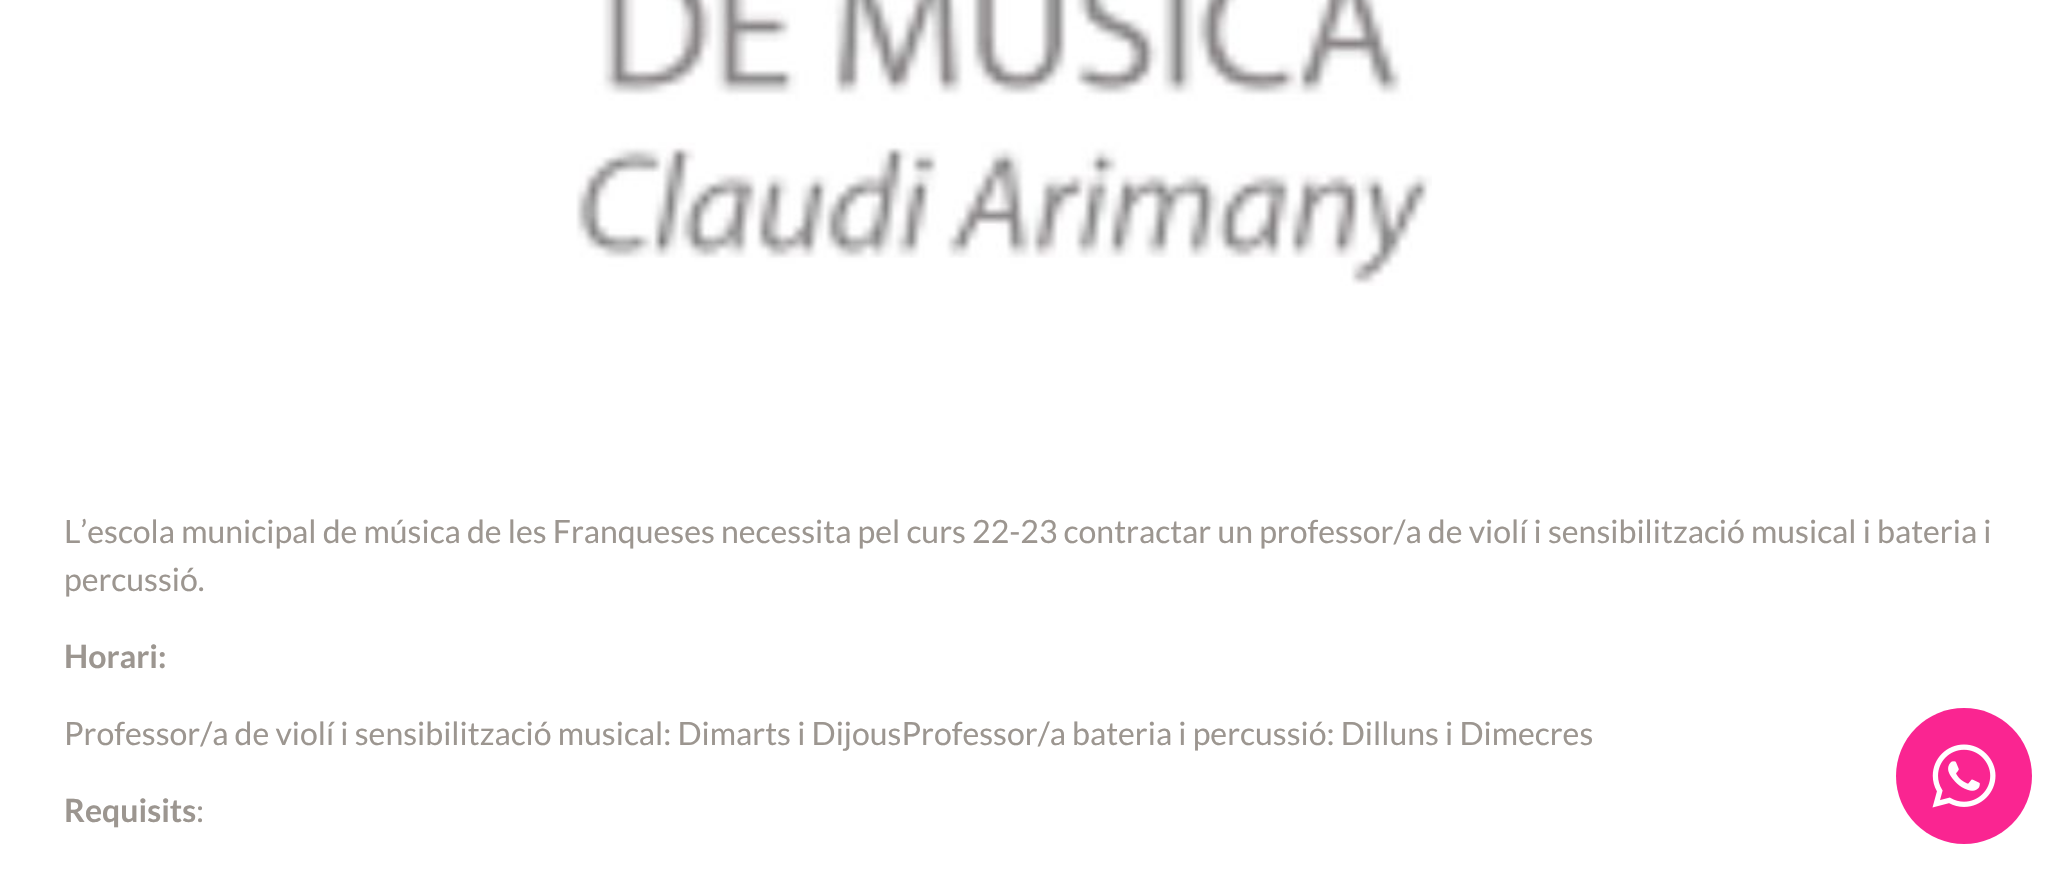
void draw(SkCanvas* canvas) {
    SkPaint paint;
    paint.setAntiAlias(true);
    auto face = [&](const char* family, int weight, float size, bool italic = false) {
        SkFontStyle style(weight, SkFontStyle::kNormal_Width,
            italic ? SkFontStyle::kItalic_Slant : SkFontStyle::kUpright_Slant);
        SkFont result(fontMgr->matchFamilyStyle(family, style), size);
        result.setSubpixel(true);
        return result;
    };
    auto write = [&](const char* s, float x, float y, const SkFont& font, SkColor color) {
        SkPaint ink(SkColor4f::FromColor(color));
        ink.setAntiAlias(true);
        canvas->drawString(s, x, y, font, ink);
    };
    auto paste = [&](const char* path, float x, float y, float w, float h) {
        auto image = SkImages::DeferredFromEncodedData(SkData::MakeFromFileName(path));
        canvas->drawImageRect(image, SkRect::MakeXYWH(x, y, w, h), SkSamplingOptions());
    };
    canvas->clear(SK_ColorWHITE);
    paste("pic1.png", 576, 0, 856, 286);
    auto kFont1 = face("Lato", 400, 32);
    write("L’escola municipal de música de les Franqueses necessita pel curs 22-23 contractar un professor/a de violí i sensibilització musical i bateria i", 64, 543, kFont1, SkColorSetRGB(156, 150, 144));
    write("percussió.", 64, 591, kFont1, SkColorSetRGB(156, 150, 144));
    auto kFont2 = face("Lato", 700, 32);
    write("Horari:", 64, 668, kFont2, SkColorSetRGB(156, 150, 144));
    write("Professor/a de violí i sensibilització musical: Dimarts i DijousProfessor/a bateria i percussió: Dilluns i Dimecres", 64, 745, kFont1, SkColorSetRGB(156, 150, 144));
    write("Requisits", 64, 822, kFont2, SkColorSetRGB(156, 150, 144));
    write(":", 196, 822, kFont1, SkColorSetRGB(156, 150, 144));
    paint.setColor(SkColorSetRGB(250, 37, 145));
    canvas->drawCircle(1964, 776, 68, paint);
    paste("pic2.png", 1932, 744, 64, 64);
}
